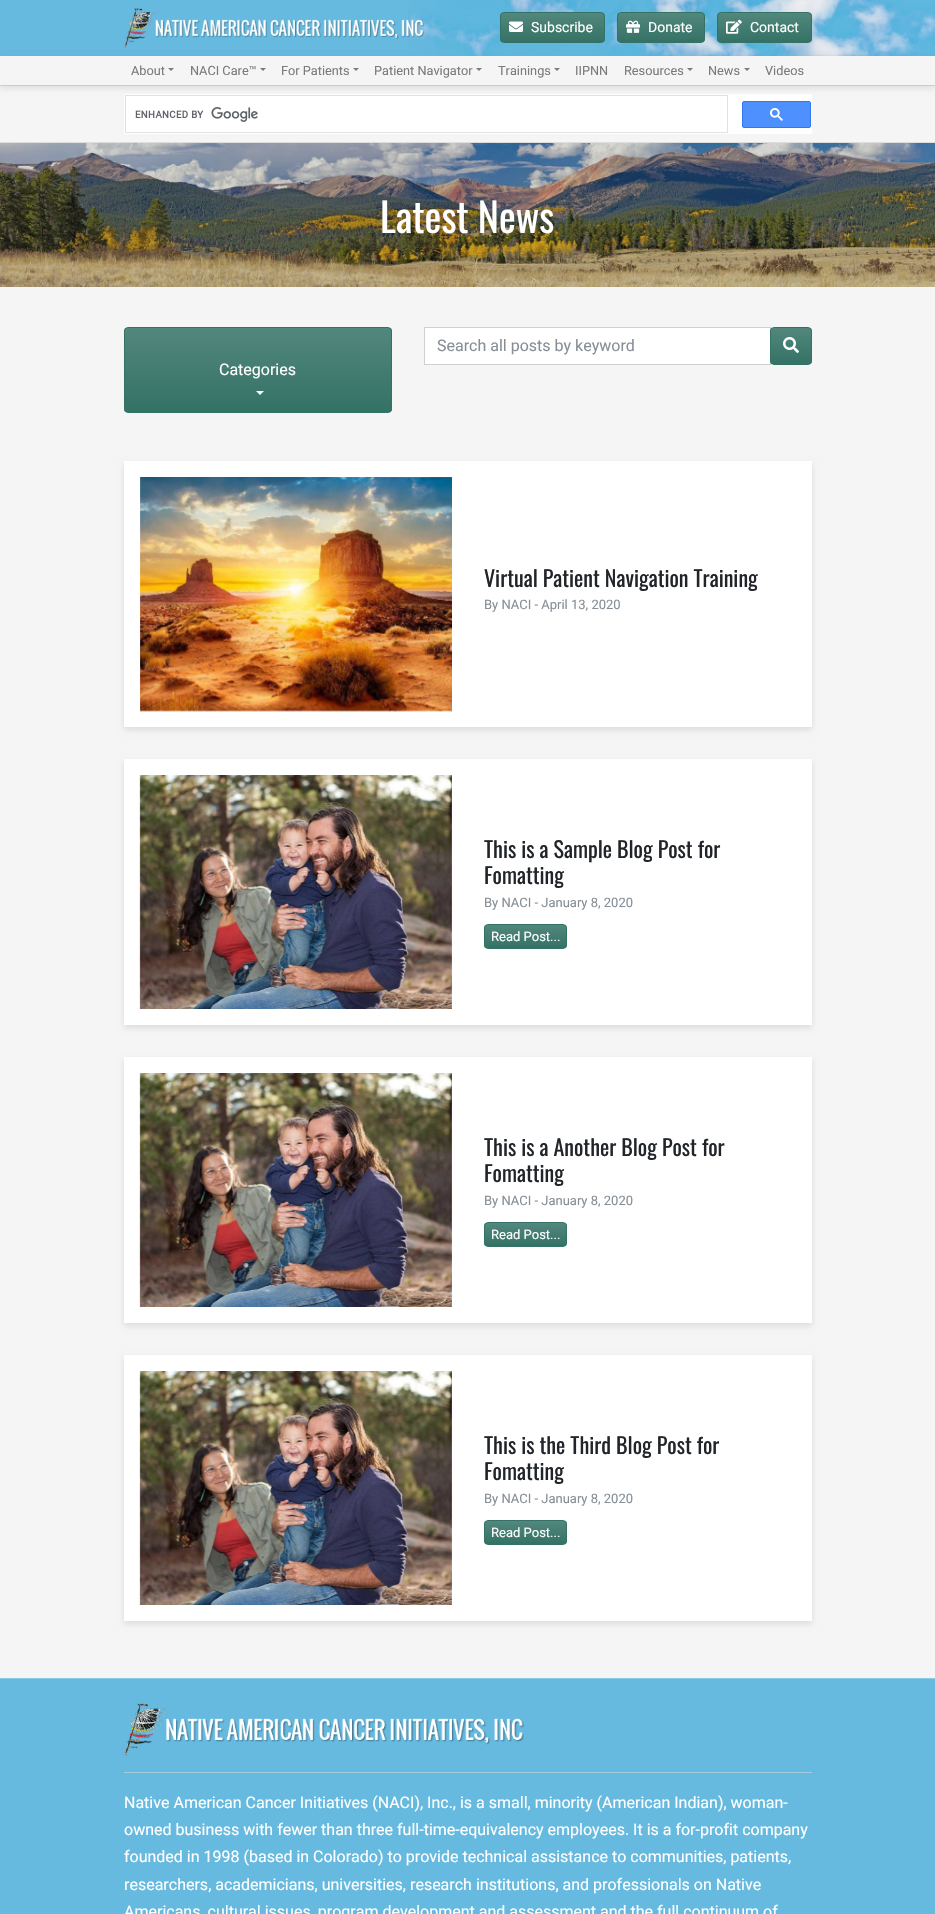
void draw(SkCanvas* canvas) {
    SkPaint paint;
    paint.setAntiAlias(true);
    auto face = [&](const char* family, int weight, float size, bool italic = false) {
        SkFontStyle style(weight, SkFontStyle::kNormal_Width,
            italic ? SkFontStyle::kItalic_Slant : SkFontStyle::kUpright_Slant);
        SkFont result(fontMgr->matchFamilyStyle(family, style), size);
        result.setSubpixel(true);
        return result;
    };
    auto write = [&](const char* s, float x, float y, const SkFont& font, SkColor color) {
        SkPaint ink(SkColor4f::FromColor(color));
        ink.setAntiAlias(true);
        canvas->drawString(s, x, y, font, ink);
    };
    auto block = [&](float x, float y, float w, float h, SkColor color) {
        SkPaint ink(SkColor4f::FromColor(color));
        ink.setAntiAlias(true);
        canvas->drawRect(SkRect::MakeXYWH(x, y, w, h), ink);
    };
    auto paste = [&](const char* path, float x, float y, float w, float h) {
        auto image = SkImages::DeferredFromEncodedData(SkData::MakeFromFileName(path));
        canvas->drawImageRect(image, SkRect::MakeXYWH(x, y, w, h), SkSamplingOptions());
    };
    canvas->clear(SkColorSetRGB(245, 245, 245));
    block(0, 0, 935, 56, SkColorSetRGB(102, 185, 223));
    paste("pic1.png", 408, 0, 527, 56);
    paste("pic2.png", 124, 8, 300, 40);
    canvas->save();
    canvas->clipPath(SkPathBuilder().moveTo(504, 12).lineTo(601, 12).cubicTo(603, 12, 605, 14, 605, 16).lineTo(605, 39).cubicTo(605, 41, 603, 43, 601, 43).lineTo(504, 43).cubicTo(502, 43, 500, 41, 500, 39).lineTo(500, 16).cubicTo(500, 14, 502, 12, 504, 12).close().detach(), true);
    {
        const SkColor colors[] = {SkColorSetRGB(82, 135, 124), SkColorSetRGB(52, 114, 101)};
        const float stops[] = {0, 1};
        const SkPoint ends[] = {{553, 13}, {553, 42}};
        paint.setShader(SkGradientShader::MakeLinear(ends, colors, stops, 2, SkTileMode::kClamp));
        paint.setAlpha(255);
    }
    canvas->drawRect(SkRect::MakeXYWH(500, 13, 105, 29), paint);
    canvas->restore();
    paint.setStyle(SkPaint::kStroke_Style);
    paint.setStrokeWidth(1);
    paint.setShader(nullptr);
    paint.setColor(SkColorSetRGB(52, 114, 101));
    canvas->drawRoundRect(SkRect::MakeXYWH(500.5f, 12.5f, 104, 30), 3.5f, 3.5f, paint);
    paste("pic3.png", 509, 21, 14, 11);
    auto kFont1 = face("Roboto", 400, 14);
    write("Subscribe", 531, 32, kFont1, SK_ColorWHITE);
    canvas->save();
    canvas->clipPath(SkPathBuilder().moveTo(621, 12).lineTo(701, 12).cubicTo(703, 12, 705, 14, 705, 16).lineTo(705, 39).cubicTo(705, 41, 703, 43, 701, 43).lineTo(621, 43).cubicTo(619, 43, 617, 41, 617, 39).lineTo(617, 16).cubicTo(617, 14, 619, 12, 621, 12).close().detach(), true);
    paint.setStyle(SkPaint::kFill_Style);
    {
        const SkColor colors[] = {SkColorSetRGB(82, 135, 124), SkColorSetRGB(52, 114, 101)};
        const float stops[] = {0, 1};
        const SkPoint ends[] = {{661, 13}, {661, 42}};
        paint.setShader(SkGradientShader::MakeLinear(ends, colors, stops, 2, SkTileMode::kClamp));
        paint.setAlpha(255);
    }
    canvas->drawRect(SkRect::MakeXYWH(617, 13, 88, 29), paint);
    canvas->restore();
    paint.setStyle(SkPaint::kStroke_Style);
    paint.setShader(nullptr);
    paint.setColor(SkColorSetRGB(52, 114, 101));
    canvas->drawRoundRect(SkRect::MakeXYWH(617.5f, 12.5f, 87, 30), 3.5f, 3.5f, paint);
    paste("pic4.png", 626, 20, 14, 13);
    write("Donate", 648, 32, kFont1, SK_ColorWHITE);
    canvas->save();
    canvas->clipPath(SkPathBuilder().moveTo(721, 12).lineTo(808, 12).cubicTo(810, 12, 812, 14, 812, 16).lineTo(812, 39).cubicTo(812, 41, 810, 43, 808, 43).lineTo(721, 43).cubicTo(719, 43, 717, 41, 717, 39).lineTo(717, 16).cubicTo(717, 14, 719, 12, 721, 12).close().detach(), true);
    paint.setStyle(SkPaint::kFill_Style);
    {
        const SkColor colors[] = {SkColorSetRGB(82, 135, 124), SkColorSetRGB(52, 114, 101)};
        const float stops[] = {0, 1};
        const SkPoint ends[] = {{765, 13}, {765, 42}};
        paint.setShader(SkGradientShader::MakeLinear(ends, colors, stops, 2, SkTileMode::kClamp));
        paint.setAlpha(255);
    }
    canvas->drawRect(SkRect::MakeXYWH(717, 13, 95, 29), paint);
    canvas->restore();
    paint.setStyle(SkPaint::kStroke_Style);
    paint.setShader(nullptr);
    paint.setColor(SkColorSetRGB(52, 114, 101));
    canvas->drawRoundRect(SkRect::MakeXYWH(717.5f, 12.5f, 94, 30), 3.5f, 3.5f, paint);
    paste("pic5.png", 726, 19, 16, 15);
    write("Contact", 750, 32, kFont1, SK_ColorWHITE);
    block(0, 85, 935, 1, SkColorSetRGB(221, 221, 221));
    block(124, 94, 688, 40, SK_ColorWHITE);
    paint.setColor(SkColorSetRGB(223, 225, 229));
    canvas->drawRect(SkRect::MakeXYWH(125.5f, 95.5f, 602, 37), paint);
    paint.setStyle(SkPaint::kFill_Style);
    paint.setColor(SkColorSetARGB(26, 0, 0, 0));
    paint.setMaskFilter(SkMaskFilter::MakeBlur(kNormal_SkBlurStyle, 3));
    canvas->drawRect(SkRect::MakeXYWH(0, 59, 935, 29), paint);
    paint.setMaskFilter(nullptr);
    block(0, 56, 935, 29, SkColorSetRGB(245, 245, 245));
    auto kFont2 = face("Roboto", 400, 12.75f);
    write("About", 131, 75, kFont2, SkColorSetRGB(123, 123, 123));
    paint.setColor(SkColorSetRGB(123, 123, 123));
    canvas->drawPath(SkPathBuilder().moveTo(168, 68).lineTo(174, 68).lineTo(171, 71).close().detach(), paint);
    write("NACI Care™", 190, 75, kFont2, SkColorSetRGB(123, 123, 123));
    canvas->drawPath(SkPathBuilder().moveTo(260, 68).lineTo(266, 68).lineTo(263, 71).close().detach(), paint);
    write("For Patients", 281, 75, kFont2, SkColorSetRGB(123, 123, 123));
    canvas->drawPath(SkPathBuilder().moveTo(353, 68).lineTo(359, 68).lineTo(356, 71).close().detach(), paint);
    write("Patient Navigator", 374, 75, kFont2, SkColorSetRGB(123, 123, 123));
    canvas->drawPath(SkPathBuilder().moveTo(476, 68).lineTo(482, 68).lineTo(479, 71).close().detach(), paint);
    write("Trainings", 498, 75, kFont2, SkColorSetRGB(123, 123, 123));
    canvas->drawPath(SkPathBuilder().moveTo(554, 68).lineTo(560, 68).lineTo(557, 71).close().detach(), paint);
    write("IIPNN", 575, 75, kFont2, SkColorSetRGB(123, 123, 123));
    write("Resources", 624, 75, kFont2, SkColorSetRGB(123, 123, 123));
    canvas->drawPath(SkPathBuilder().moveTo(687, 68).lineTo(693, 68).lineTo(690, 71).close().detach(), paint);
    write("News", 708, 75, kFont2, SkColorSetRGB(123, 123, 123));
    canvas->drawPath(SkPathBuilder().moveTo(744, 68).lineTo(750, 68).lineTo(747, 71).close().detach(), paint);
    write("Videos", 765, 75, kFont2, SkColorSetRGB(123, 123, 123));
    block(0, 142, 935, 1, SkColorSetRGB(221, 221, 221));
    paste("pic6.png", 135, 107, 123, 15);
    paint.setColor(SkColorSetRGB(77, 144, 254));
    canvas->drawRoundRect(SkRect::MakeXYWH(742.5f, 101.5f, 68, 26), 1.5f, 1.5f, paint);
    paint.setStyle(SkPaint::kStroke_Style);
    paint.setColor(SkColorSetRGB(48, 121, 237));
    canvas->drawRoundRect(SkRect::MakeXYWH(742.5f, 101.5f, 68, 26), 1.5f, 1.5f, paint);
    paste("pic7.png", 770, 108, 13, 13);
    paste("pic8.png", 0, 143, 935, 144);
    auto kFont3 = face("Oswald", 400, 40);
    write("Latest News", 380, 233, kFont3, SK_ColorWHITE);
    paint.setStyle(SkPaint::kFill_Style);
    paint.setColor(SK_ColorWHITE);
    canvas->drawRect(SkRect::MakeXYWH(424.5f, 327.5f, 346, 37), paint);
    paint.setStyle(SkPaint::kStroke_Style);
    paint.setColor(SkColorSetRGB(208, 208, 208));
    canvas->drawRect(SkRect::MakeXYWH(424.5f, 327.5f, 346, 37), paint);
    auto kFont4 = face("Roboto", 400, 16);
    write("Search all posts by keyword", 437, 351, kFont4, SkColorSetRGB(134, 142, 150));
    canvas->save();
    canvas->clipPath(SkPathBuilder().moveTo(774, 327).lineTo(808, 327).cubicTo(810, 327, 812, 329, 812, 331).lineTo(812, 361).cubicTo(812, 363, 810, 365, 808, 365).lineTo(774, 365).cubicTo(772, 365, 770, 363, 770, 361).lineTo(770, 331).cubicTo(770, 329, 772, 327, 774, 327).close().detach(), true);
    paint.setStyle(SkPaint::kFill_Style);
    {
        const SkColor colors[] = {SkColorSetRGB(82, 135, 124), SkColorSetRGB(52, 114, 101)};
        const float stops[] = {0, 1};
        const SkPoint ends[] = {{791, 328}, {791, 364}};
        paint.setShader(SkGradientShader::MakeLinear(ends, colors, stops, 2, SkTileMode::kClamp));
        paint.setAlpha(255);
    }
    canvas->drawRect(SkRect::MakeXYWH(770, 328, 42, 36), paint);
    canvas->restore();
    paint.setStyle(SkPaint::kStroke_Style);
    paint.setShader(nullptr);
    paint.setColor(SkColorSetRGB(52, 114, 101));
    canvas->drawRoundRect(SkRect::MakeXYWH(770.5f, 327.5f, 41, 37), 3.5f, 3.5f, paint);
    paste("pic9.png", 783, 337, 16, 16);
    canvas->save();
    canvas->clipPath(SkPathBuilder().moveTo(128, 327).lineTo(388, 327).cubicTo(390, 327, 392, 329, 392, 331).lineTo(392, 409).cubicTo(392, 411, 390, 413, 388, 413).lineTo(128, 413).cubicTo(126, 413, 124, 411, 124, 409).lineTo(124, 331).cubicTo(124, 329, 126, 327, 128, 327).close().detach(), true);
    paint.setStyle(SkPaint::kFill_Style);
    {
        const SkColor colors[] = {SkColorSetRGB(82, 135, 124), SkColorSetRGB(52, 114, 101)};
        const float stops[] = {0, 1};
        const SkPoint ends[] = {{258, 328}, {258, 412}};
        paint.setShader(SkGradientShader::MakeLinear(ends, colors, stops, 2, SkTileMode::kClamp));
        paint.setAlpha(255);
    }
    canvas->drawRect(SkRect::MakeXYWH(124, 328, 268, 84), paint);
    canvas->restore();
    paint.setStyle(SkPaint::kStroke_Style);
    paint.setShader(nullptr);
    paint.setColor(SkColorSetRGB(52, 114, 101));
    canvas->drawRoundRect(SkRect::MakeXYWH(124.5f, 327.5f, 267, 85), 3.5f, 3.5f, paint);
    write("Categories", 219, 375, kFont4, SK_ColorWHITE);
    paint.setStyle(SkPaint::kFill_Style);
    paint.setColor(SK_ColorWHITE);
    canvas->drawPath(SkPathBuilder().moveTo(256, 391).lineTo(264, 391).lineTo(260, 395).close().detach(), paint);
    paint.setColor(SkColorSetARGB(26, 0, 0, 0));
    paint.setMaskFilter(SkMaskFilter::MakeBlur(kNormal_SkBlurStyle, 3));
    canvas->drawRect(SkRect::MakeXYWH(124, 464, 688, 266), paint);
    paint.setMaskFilter(nullptr);
    block(124, 461, 688, 266, SK_ColorWHITE);
    paste("pic10.png", 140, 477, 312, 235);
    auto kFont5 = face("Oswald", 400, 22);
    write("Virtual Patient Navigation Training", 484, 587, kFont5, SkColorSetRGB(33, 37, 41));
    auto kFont6 = face("Roboto", 400, 13);
    write("By NACI - April 13, 2020", 484, 609, kFont6, SkColorSetRGB(134, 142, 150));
    paint.setMaskFilter(SkMaskFilter::MakeBlur(kNormal_SkBlurStyle, 3));
    canvas->drawRect(SkRect::MakeXYWH(124, 762, 688, 266), paint);
    paint.setMaskFilter(nullptr);
    block(124, 759, 688, 266, SK_ColorWHITE);
    paste("pic11.png", 139, 775, 313, 234);
    write("This is a Sample Blog Post for", 484, 858, kFont5, SkColorSetRGB(33, 37, 41));
    write("Fomatting", 484, 884, kFont5, SkColorSetRGB(33, 37, 41));
    write("By NACI - January 8, 2020", 484, 907, kFont6, SkColorSetRGB(134, 142, 150));
    canvas->save();
    canvas->clipPath(SkPathBuilder().moveTo(488, 924).lineTo(563, 924).cubicTo(565, 924, 567, 926, 567, 928).lineTo(567, 945).cubicTo(567, 947, 565, 949, 563, 949).lineTo(488, 949).cubicTo(486, 949, 484, 947, 484, 945).lineTo(484, 928).cubicTo(484, 926, 486, 924, 488, 924).close().detach(), true);
    {
        const SkColor colors[] = {SkColorSetRGB(82, 135, 124), SkColorSetRGB(52, 114, 101)};
        const float stops[] = {0, 1};
        const SkPoint ends[] = {{526, 925}, {526, 948}};
        paint.setShader(SkGradientShader::MakeLinear(ends, colors, stops, 2, SkTileMode::kClamp));
        paint.setAlpha(255);
    }
    canvas->drawRect(SkRect::MakeXYWH(484, 925, 83, 23), paint);
    canvas->restore();
    paint.setStyle(SkPaint::kStroke_Style);
    paint.setShader(nullptr);
    paint.setColor(SkColorSetRGB(52, 114, 101));
    canvas->drawRoundRect(SkRect::MakeXYWH(484.5f, 924.5f, 82, 24), 3.5f, 3.5f, paint);
    write("Read Post...", 491, 941, kFont6, SK_ColorWHITE);
    paint.setStyle(SkPaint::kFill_Style);
    paint.setColor(SkColorSetARGB(26, 0, 0, 0));
    paint.setMaskFilter(SkMaskFilter::MakeBlur(kNormal_SkBlurStyle, 3));
    canvas->drawRect(SkRect::MakeXYWH(124, 1060, 688, 266), paint);
    paint.setMaskFilter(nullptr);
    block(124, 1057, 688, 266, SK_ColorWHITE);
    paste("pic11.png", 139, 1073, 313, 234);
    write("This is a Another Blog Post for", 484, 1156, kFont5, SkColorSetRGB(33, 37, 41));
    write("Fomatting", 484, 1182, kFont5, SkColorSetRGB(33, 37, 41));
    write("By NACI - January 8, 2020", 484, 1205, kFont6, SkColorSetRGB(134, 142, 150));
    canvas->save();
    canvas->clipPath(SkPathBuilder().moveTo(488, 1222).lineTo(563, 1222).cubicTo(565, 1222, 567, 1224, 567, 1226).lineTo(567, 1243).cubicTo(567, 1245, 565, 1247, 563, 1247).lineTo(488, 1247).cubicTo(486, 1247, 484, 1245, 484, 1243).lineTo(484, 1226).cubicTo(484, 1224, 486, 1222, 488, 1222).close().detach(), true);
    {
        const SkColor colors[] = {SkColorSetRGB(82, 135, 124), SkColorSetRGB(52, 114, 101)};
        const float stops[] = {0, 1};
        const SkPoint ends[] = {{526, 1223}, {526, 1246}};
        paint.setShader(SkGradientShader::MakeLinear(ends, colors, stops, 2, SkTileMode::kClamp));
        paint.setAlpha(255);
    }
    canvas->drawRect(SkRect::MakeXYWH(484, 1223, 83, 23), paint);
    canvas->restore();
    paint.setStyle(SkPaint::kStroke_Style);
    paint.setShader(nullptr);
    paint.setColor(SkColorSetRGB(52, 114, 101));
    canvas->drawRoundRect(SkRect::MakeXYWH(484.5f, 1222.5f, 82, 24), 3.5f, 3.5f, paint);
    write("Read Post...", 491, 1239, kFont6, SK_ColorWHITE);
    paint.setStyle(SkPaint::kFill_Style);
    paint.setColor(SkColorSetARGB(26, 0, 0, 0));
    paint.setMaskFilter(SkMaskFilter::MakeBlur(kNormal_SkBlurStyle, 3));
    canvas->drawRect(SkRect::MakeXYWH(124, 1358, 688, 266), paint);
    paint.setMaskFilter(nullptr);
    block(124, 1355, 688, 266, SK_ColorWHITE);
    paste("pic11.png", 139, 1371, 313, 234);
    write("This is the Third Blog Post for", 484, 1454, kFont5, SkColorSetRGB(33, 37, 41));
    write("Fomatting", 484, 1480, kFont5, SkColorSetRGB(33, 37, 41));
    write("By NACI - January 8, 2020", 484, 1503, kFont6, SkColorSetRGB(134, 142, 150));
    canvas->save();
    canvas->clipPath(SkPathBuilder().moveTo(488, 1520).lineTo(563, 1520).cubicTo(565, 1520, 567, 1522, 567, 1524).lineTo(567, 1541).cubicTo(567, 1543, 565, 1545, 563, 1545).lineTo(488, 1545).cubicTo(486, 1545, 484, 1543, 484, 1541).lineTo(484, 1524).cubicTo(484, 1522, 486, 1520, 488, 1520).close().detach(), true);
    {
        const SkColor colors[] = {SkColorSetRGB(82, 135, 124), SkColorSetRGB(52, 114, 101)};
        const float stops[] = {0, 1};
        const SkPoint ends[] = {{526, 1521}, {526, 1544}};
        paint.setShader(SkGradientShader::MakeLinear(ends, colors, stops, 2, SkTileMode::kClamp));
        paint.setAlpha(255);
    }
    canvas->drawRect(SkRect::MakeXYWH(484, 1521, 83, 23), paint);
    canvas->restore();
    paint.setStyle(SkPaint::kStroke_Style);
    paint.setShader(nullptr);
    paint.setColor(SkColorSetRGB(52, 114, 101));
    canvas->drawRoundRect(SkRect::MakeXYWH(484.5f, 1520.5f, 82, 24), 3.5f, 3.5f, paint);
    write("Read Post...", 491, 1537, kFont6, SK_ColorWHITE);
    block(0, 1679, 935, 235, SkColorSetRGB(102, 185, 223));
    block(0, 1678, 935, 1, SkColorSetRGB(140, 203, 231));
    paste("pic12.png", 124, 1703, 400, 53);
    block(124, 1772, 688, 1, SkColorSetRGB(162, 203, 222));
    write("Native American Cancer Initiatives (NACI), Inc., is a small, minority (American Indian), woman-", 124, 1808, kFont4, SK_ColorWHITE);
    write("owned business with fewer than three full-time-equivalency employees. It is a for-profit company", 124, 1835, kFont4, SK_ColorWHITE);
    write("founded in 1998 (based in Colorado) to provide technical assistance to communities, patients,", 124, 1862, kFont4, SK_ColorWHITE);
    write("researchers, academicians, universities, research institutions, and professionals on Native", 124, 1890, kFont4, SK_ColorWHITE);
    write("Americans, cultural issues, program development and assessment and the full continuum of", 124, 1917, kFont4, SK_ColorWHITE);
}
